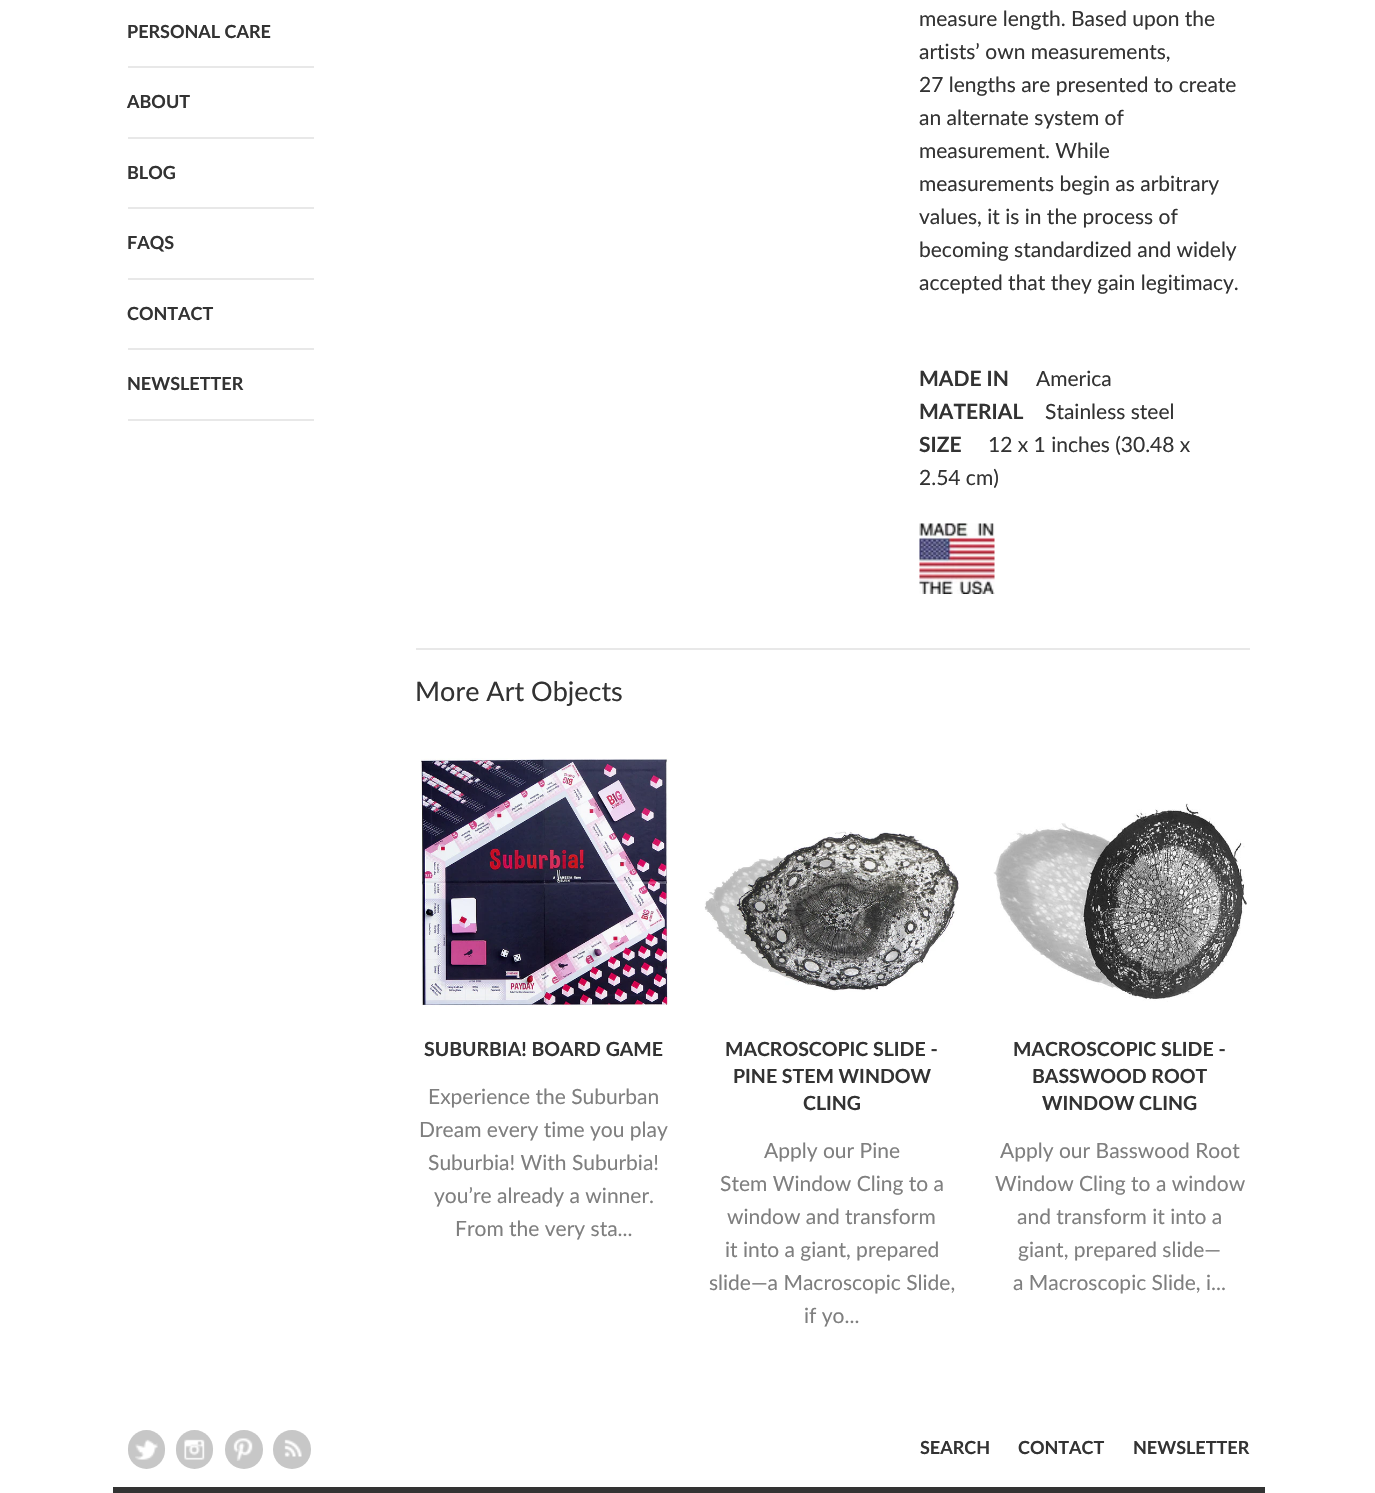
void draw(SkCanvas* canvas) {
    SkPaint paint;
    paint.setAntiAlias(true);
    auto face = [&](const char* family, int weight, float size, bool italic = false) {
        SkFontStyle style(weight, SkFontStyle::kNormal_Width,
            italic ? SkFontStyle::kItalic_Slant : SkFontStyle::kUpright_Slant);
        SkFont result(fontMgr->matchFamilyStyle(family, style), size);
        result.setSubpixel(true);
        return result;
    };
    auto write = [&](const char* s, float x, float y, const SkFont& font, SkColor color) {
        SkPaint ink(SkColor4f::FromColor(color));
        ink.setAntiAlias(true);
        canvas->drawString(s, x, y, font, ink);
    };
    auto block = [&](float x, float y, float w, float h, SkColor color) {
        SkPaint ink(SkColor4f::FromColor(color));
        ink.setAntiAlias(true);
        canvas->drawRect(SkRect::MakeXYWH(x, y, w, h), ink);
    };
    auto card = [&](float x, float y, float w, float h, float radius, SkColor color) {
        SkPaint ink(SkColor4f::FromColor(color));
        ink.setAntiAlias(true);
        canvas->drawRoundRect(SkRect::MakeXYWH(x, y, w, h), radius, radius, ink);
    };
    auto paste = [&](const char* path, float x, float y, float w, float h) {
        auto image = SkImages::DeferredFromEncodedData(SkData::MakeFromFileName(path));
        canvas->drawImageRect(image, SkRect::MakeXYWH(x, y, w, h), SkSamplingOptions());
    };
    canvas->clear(SK_ColorWHITE);
    auto kFont1 = face("Lato", 700, 18);
    write("PERSONAL CARE", 127, 38, kFont1, SkColorSetRGB(51, 51, 51));
    block(128, 66, 186, 2, SkColorSetRGB(232, 232, 232));
    write("ABOUT", 127, 108, kFont1, SkColorSetRGB(51, 51, 51));
    block(128, 137, 186, 2, SkColorSetRGB(232, 232, 232));
    write("BLOG", 127, 179, kFont1, SkColorSetRGB(51, 51, 51));
    block(128, 207, 186, 2, SkColorSetRGB(232, 232, 232));
    write("FAQS", 127, 249, kFont1, SkColorSetRGB(51, 51, 51));
    block(128, 278, 186, 2, SkColorSetRGB(232, 232, 232));
    write("CONTACT", 127, 320, kFont1, SkColorSetRGB(51, 51, 51));
    block(128, 348, 186, 2, SkColorSetRGB(232, 232, 232));
    block(128, 419, 186, 2, SkColorSetRGB(232, 232, 232));
    write("NEWSLETTER", 127, 390, kFont1, SkColorSetRGB(51, 51, 51));
    auto kFont2 = face("Lato", 400, 21);
    write("measure length. Based upon the", 919, 26, kFont2, SkColorSetRGB(51, 51, 51));
    write("artists’ own measurements,", 919, 59, kFont2, SkColorSetRGB(51, 51, 51));
    write("27 lengths are presented to create", 919, 92, kFont2, SkColorSetRGB(51, 51, 51));
    write("an alternate system of", 919, 125, kFont2, SkColorSetRGB(51, 51, 51));
    write("measurement. While", 919, 158, kFont2, SkColorSetRGB(51, 51, 51));
    write("measurements begin as arbitrary", 919, 191, kFont2, SkColorSetRGB(51, 51, 51));
    write("values, it is in the process of", 919, 224, kFont2, SkColorSetRGB(51, 51, 51));
    write("becoming standardized and widely", 919, 257, kFont2, SkColorSetRGB(51, 51, 51));
    write("accepted that they gain legitimacy.", 919, 290, kFont2, SkColorSetRGB(51, 51, 51));
    auto kFont3 = face("Lato", 700, 21);
    write("MADE IN", 919, 386, kFont3, SkColorSetRGB(51, 51, 51));
    write("America", 1036, 386, kFont2, SkColorSetRGB(51, 51, 51));
    write("MATERIAL", 919, 419, kFont3, SkColorSetRGB(51, 51, 51));
    write("Stainless steel", 1045, 419, kFont2, SkColorSetRGB(51, 51, 51));
    write("SIZE", 919, 452, kFont3, SkColorSetRGB(51, 51, 51));
    write("12 x 1 inches (30.48 x", 988, 452, kFont2, SkColorSetRGB(51, 51, 51));
    write("2.54 cm)", 919, 485, kFont2, SkColorSetRGB(51, 51, 51));
    paste("pic1.png", 919, 523, 76, 71);
    block(416, 648, 834, 2, SkColorSetRGB(232, 232, 232));
    auto kFont4 = face("Lato", 400, 27);
    write("More Art Objects", 415, 701, kFont4, SkColorSetRGB(51, 51, 51));
    paste("pic2.png", 420, 758, 249, 249);
    auto kFont5 = face("Lato", 700, 19.5f);
    write("SUBURBIA! BOARD GAME", 424, 1056, kFont5, SkColorSetRGB(51, 51, 51));
    write("Experience the Suburban", 428, 1104, kFont2, SkColorSetRGB(127, 127, 127));
    write("Dream every time you play", 419, 1137, kFont2, SkColorSetRGB(127, 127, 127));
    write("Suburbia! With Suburbia!", 428, 1170, kFont2, SkColorSetRGB(127, 127, 127));
    write("you’re already a winner.", 434, 1203, kFont2, SkColorSetRGB(127, 127, 127));
    write("From the very sta...", 455, 1236, kFont2, SkColorSetRGB(127, 127, 127));
    paste("pic3.png", 704, 830, 255, 162);
    write("MACROSCOPIC SLIDE -", 725, 1056, kFont5, SkColorSetRGB(51, 51, 51));
    write("PINE STEM WINDOW", 733, 1083, kFont5, SkColorSetRGB(51, 51, 51));
    write("CLING", 803, 1110, kFont5, SkColorSetRGB(51, 51, 51));
    write("Apply our Pine", 764, 1158, kFont2, SkColorSetRGB(127, 127, 127));
    write("Stem Window Cling to a", 720, 1191, kFont2, SkColorSetRGB(127, 127, 127));
    write("window and transform", 727, 1224, kFont2, SkColorSetRGB(127, 127, 127));
    write("it into a giant, prepared", 725, 1257, kFont2, SkColorSetRGB(127, 127, 127));
    write("slide—a Macroscopic Slide,", 709, 1290, kFont2, SkColorSetRGB(127, 127, 127));
    write("if yo...", 804, 1323, kFont2, SkColorSetRGB(127, 127, 127));
    paste("pic4.png", 993, 803, 254, 199);
    write("MACROSCOPIC SLIDE -", 1013, 1056, kFont5, SkColorSetRGB(51, 51, 51));
    write("BASSWOOD ROOT", 1032, 1083, kFont5, SkColorSetRGB(51, 51, 51));
    write("WINDOW CLING", 1042, 1110, kFont5, SkColorSetRGB(51, 51, 51));
    write("Apply our Basswood Root", 1000, 1158, kFont2, SkColorSetRGB(127, 127, 127));
    write("Window Cling to a window", 995, 1191, kFont2, SkColorSetRGB(127, 127, 127));
    write("and transform it into a", 1017, 1224, kFont2, SkColorSetRGB(127, 127, 127));
    write("giant, prepared slide—", 1018, 1257, kFont2, SkColorSetRGB(127, 127, 127));
    write("a Macroscopic Slide, i...", 1013, 1290, kFont2, SkColorSetRGB(127, 127, 127));
    block(113, 1487, 1152, 6, SkColorSetRGB(51, 51, 51));
    card(128, 1430, 37, 39, 18.5f, SkColorSetRGB(199, 199, 199));
    paste("pic5.png", 135, 1439, 23, 21);
    card(176, 1430, 37, 39, 18.5f, SkColorSetRGB(199, 199, 199));
    paste("pic6.png", 184, 1439, 21, 21);
    card(225, 1430, 38, 39, 19, SkColorSetRGB(199, 199, 199));
    paste("pic7.png", 233, 1438, 20, 23);
    card(273, 1430, 38, 39, 19, SkColorSetRGB(199, 199, 199));
    paste("pic8.png", 284, 1439, 18, 18);
    write("SEARCH", 920, 1454, kFont1, SkColorSetRGB(51, 51, 51));
    write("CONTACT", 1018, 1454, kFont1, SkColorSetRGB(51, 51, 51));
    write("NEWSLETTER", 1133, 1454, kFont1, SkColorSetRGB(51, 51, 51));
}
